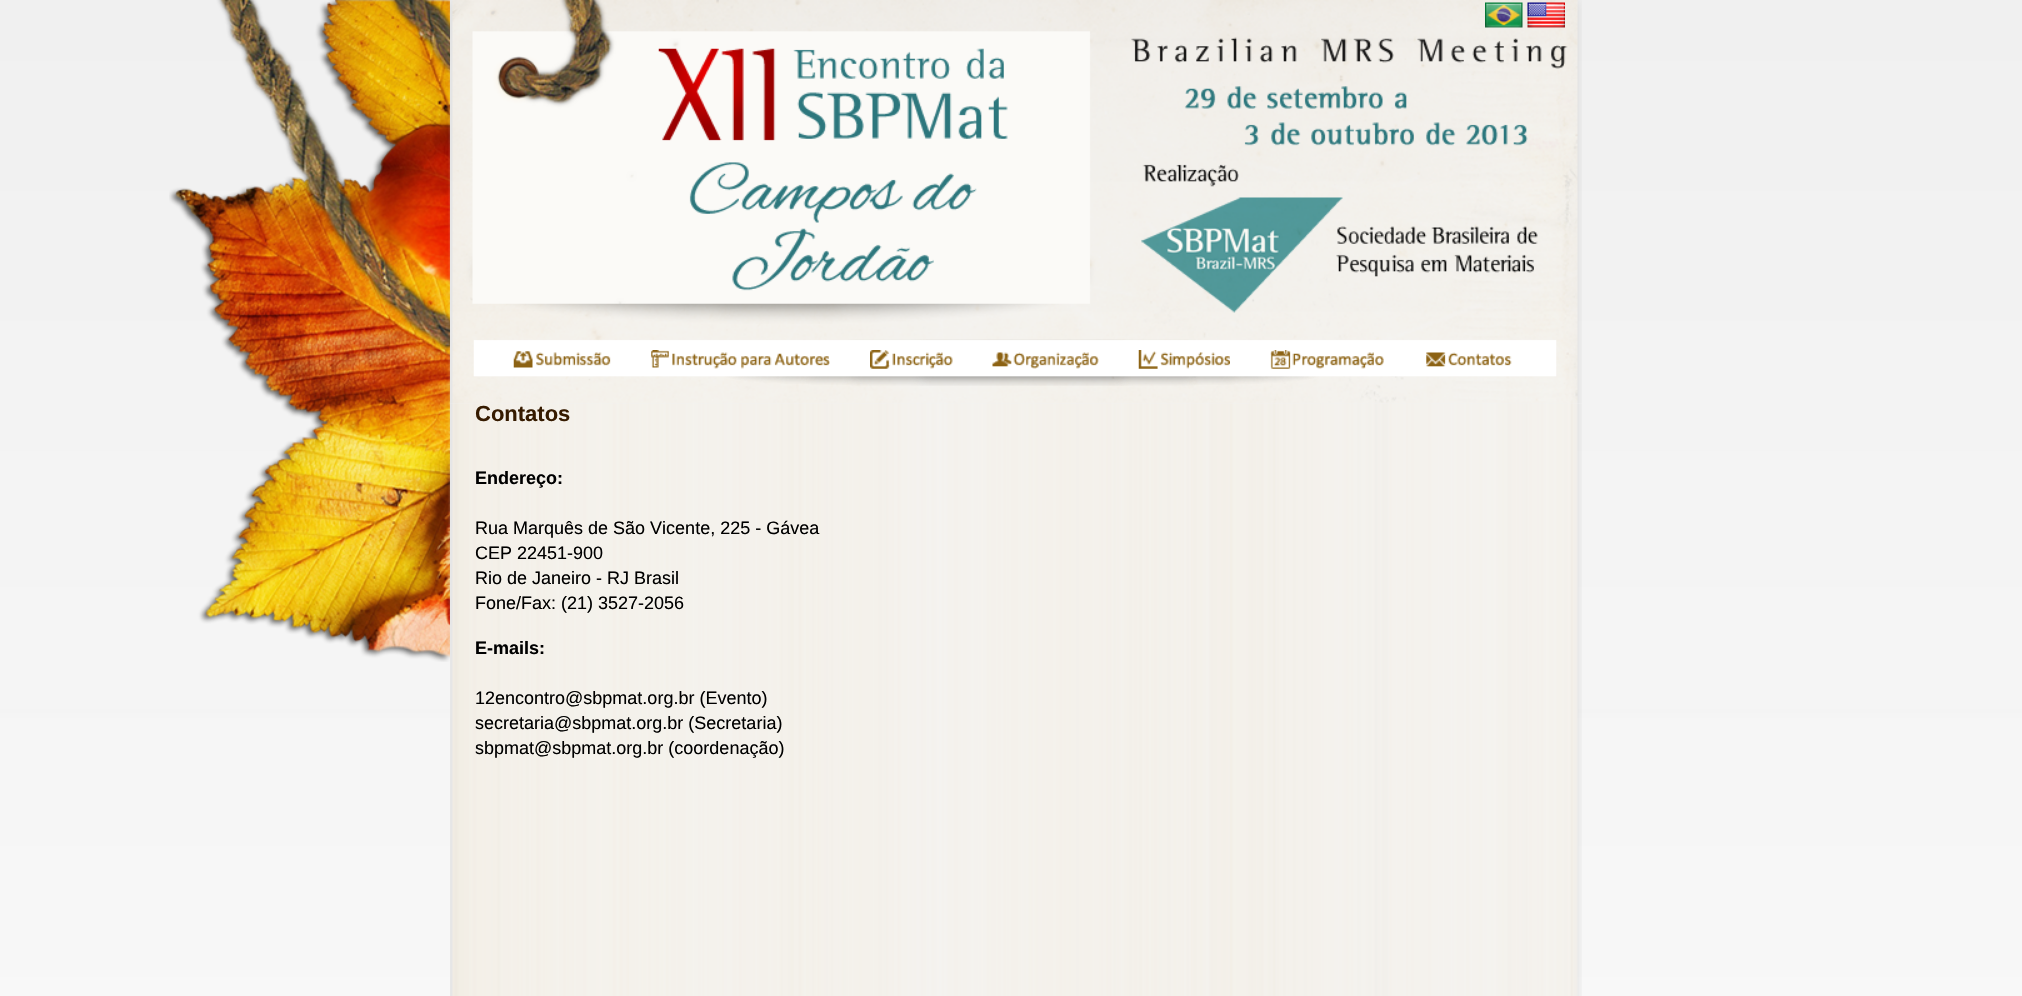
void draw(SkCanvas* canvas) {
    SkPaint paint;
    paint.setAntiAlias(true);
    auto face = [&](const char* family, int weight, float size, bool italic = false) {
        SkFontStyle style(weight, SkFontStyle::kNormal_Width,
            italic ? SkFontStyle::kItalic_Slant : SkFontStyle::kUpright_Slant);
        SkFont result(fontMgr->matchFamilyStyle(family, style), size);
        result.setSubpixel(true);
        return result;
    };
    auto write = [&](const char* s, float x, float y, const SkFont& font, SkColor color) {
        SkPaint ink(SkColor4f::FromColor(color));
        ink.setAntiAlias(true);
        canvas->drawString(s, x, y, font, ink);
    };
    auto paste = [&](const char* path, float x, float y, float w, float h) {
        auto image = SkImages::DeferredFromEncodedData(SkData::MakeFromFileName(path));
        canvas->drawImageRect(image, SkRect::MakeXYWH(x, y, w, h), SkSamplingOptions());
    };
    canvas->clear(SK_ColorWHITE);
    paste("pic1.png", 0, 0, 2022, 996);
    paste("pic2.png", 169, 0, 281, 662);
    paste("pic3.png", 450, 0, 1132, 404);
    paste("pic4.png", 1485, 2, 38, 26);
    paste("pic5.png", 1527, 2, 38, 26);
    paste("pic6.png", 658, 48, 350, 243);
    paste("pic7.png", 473, 339, 1084, 47);
    paste("pic8.png", 513, 351, 98, 17);
    paste("pic9.png", 651, 350, 179, 19);
    paste("pic10.png", 870, 350, 83, 19);
    paste("pic11.png", 992, 352, 107, 17);
    paste("pic12.png", 1138, 350, 92, 19);
    paste("pic13.png", 1270, 350, 114, 19);
    paste("pic14.png", 1426, 352, 86, 15);
    paste("pic15.png", 450, 404, 1132, 592);
    auto kFont1 = face("Liberation Sans", 700, 22);
    write("Contatos", 475, 421, kFont1, SkColorSetRGB(54, 27, 0));
    auto kFont2 = face("Liberation Sans", 700, 18);
    write("Endereço:", 475, 484, kFont2, SK_ColorBLACK);
    auto kFont3 = face("Liberation Sans", 400, 18);
    write("Rua Marquês de São Vicente, 225 - Gávea", 475, 534, kFont3, SK_ColorBLACK);
    write("CEP 22451-900", 475, 559, kFont3, SK_ColorBLACK);
    write("Rio de Janeiro - RJ Brasil", 475, 584, kFont3, SK_ColorBLACK);
    write("Fone/Fax: (21) 3527-2056", 475, 609, kFont3, SK_ColorBLACK);
    write("E-mails:", 475, 654, kFont2, SK_ColorBLACK);
    write("12encontro@sbpmat.org.br (Evento)", 475, 704, kFont3, SK_ColorBLACK);
    write("secretaria@sbpmat.org.br (Secretaria)", 475, 729, kFont3, SK_ColorBLACK);
    write("sbpmat@sbpmat.org.br (coordenação)", 475, 754, kFont3, SK_ColorBLACK);
}
